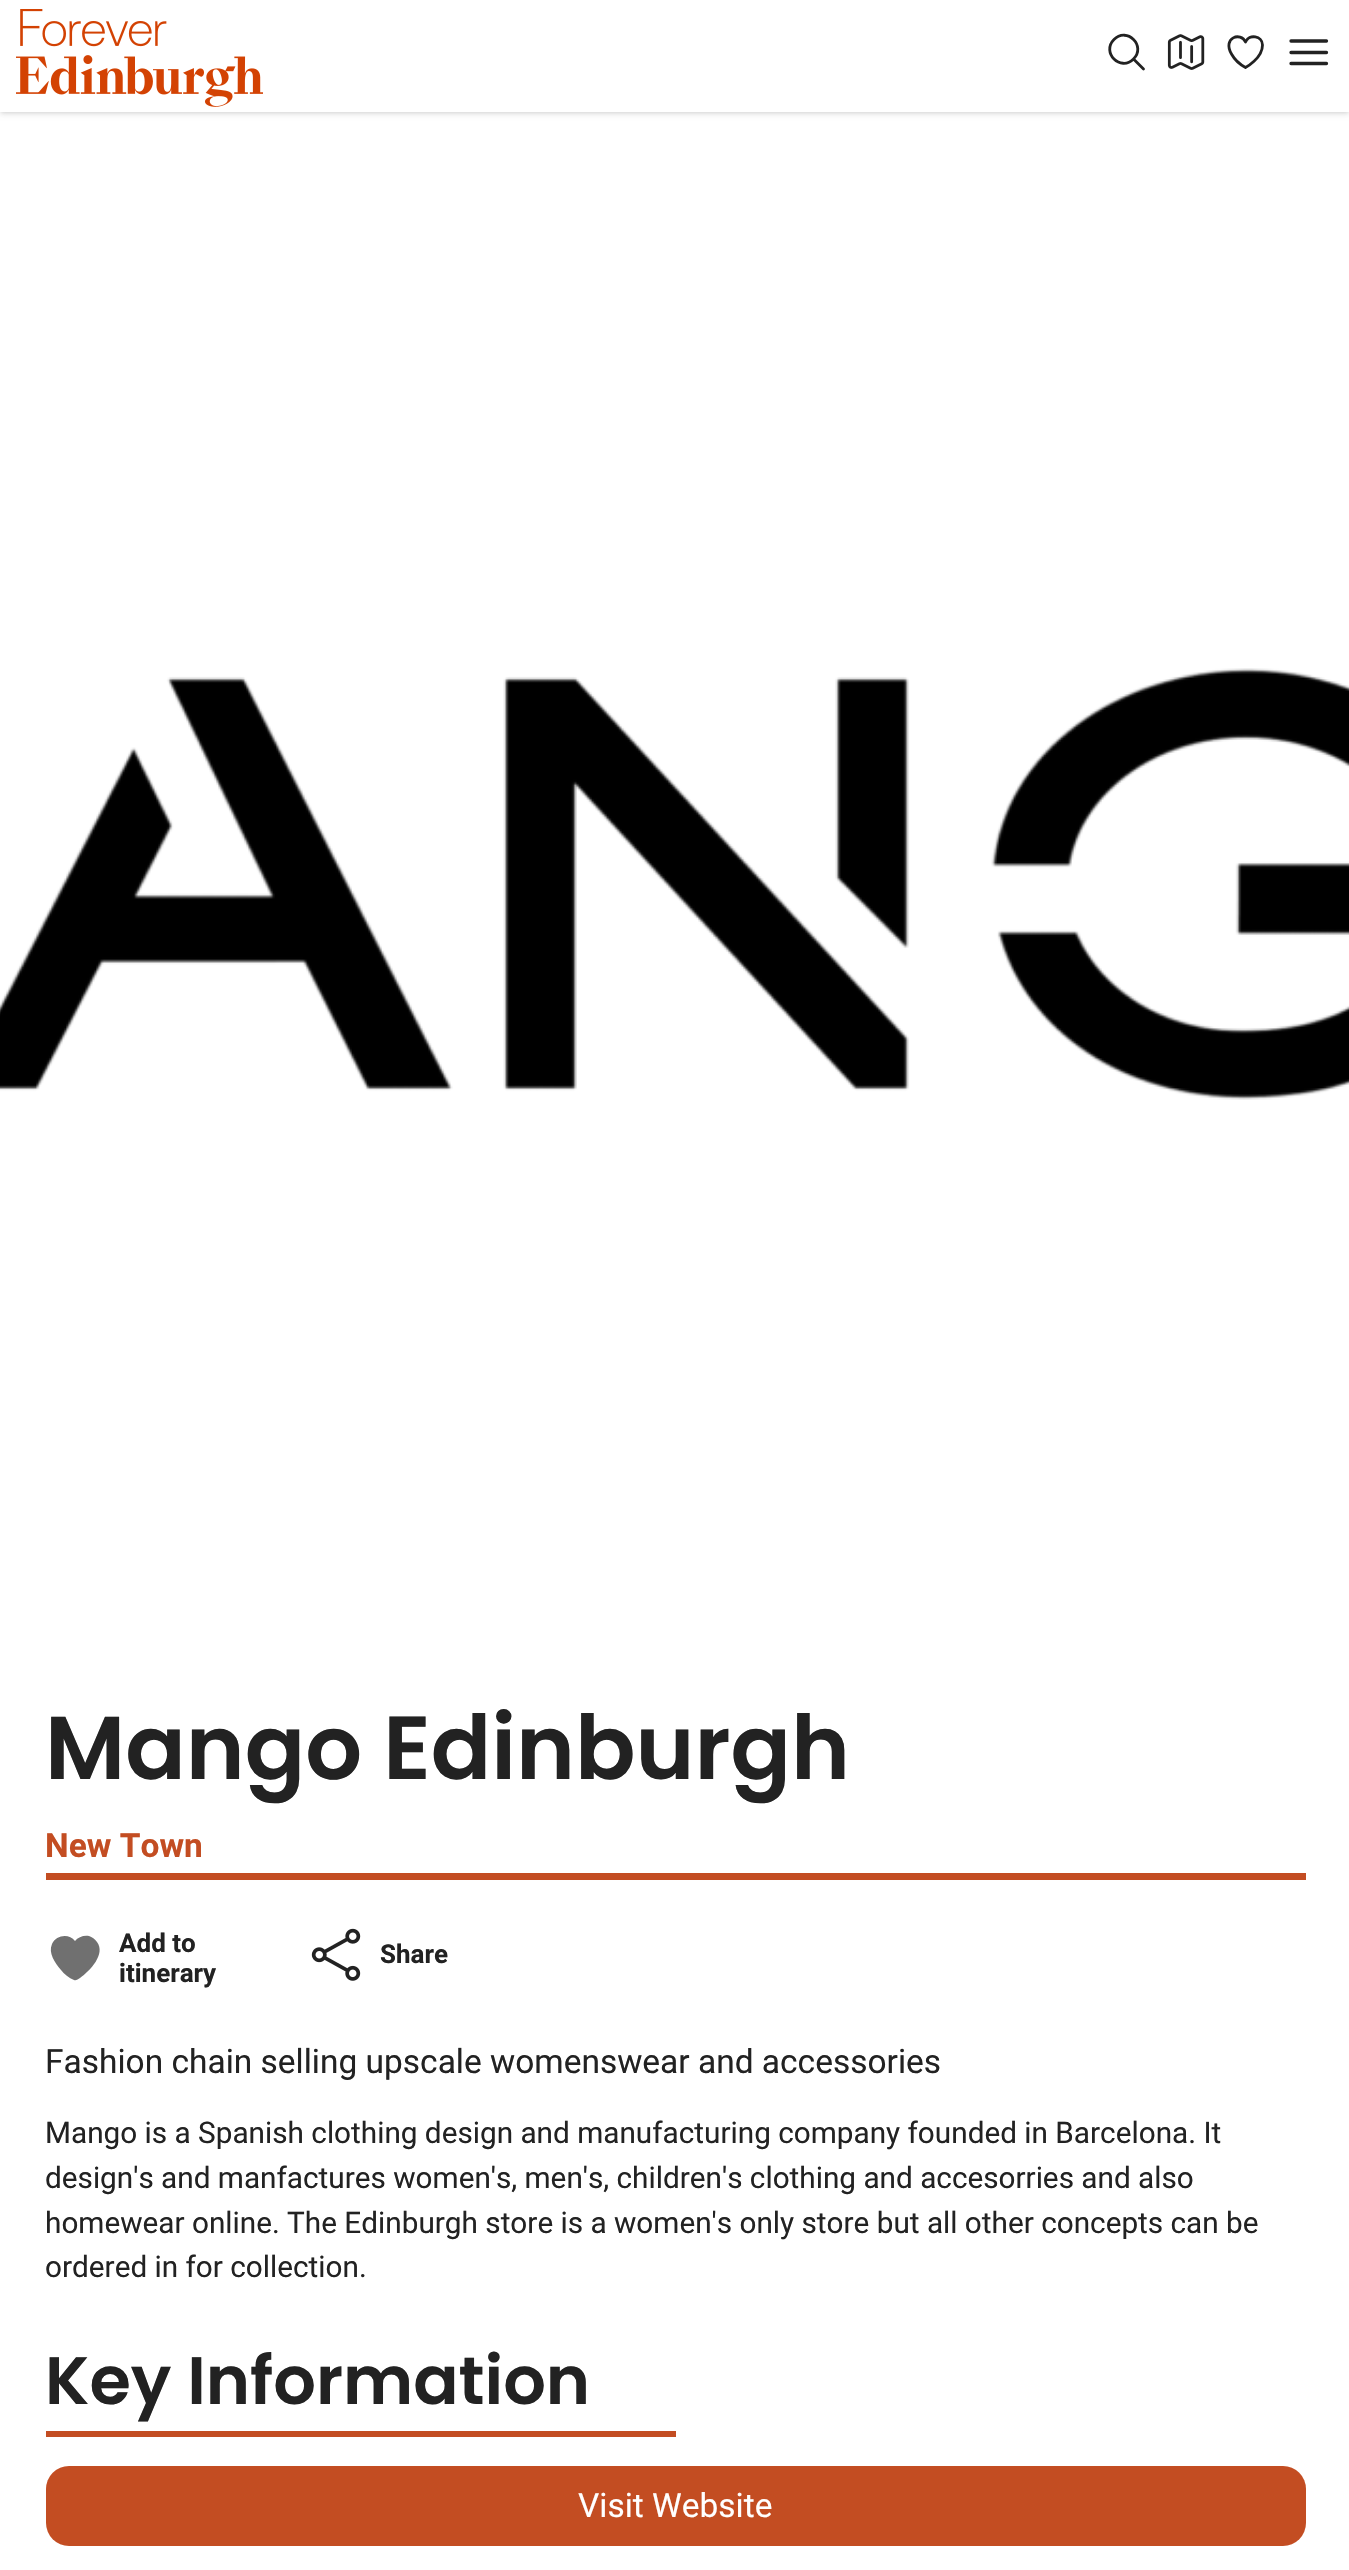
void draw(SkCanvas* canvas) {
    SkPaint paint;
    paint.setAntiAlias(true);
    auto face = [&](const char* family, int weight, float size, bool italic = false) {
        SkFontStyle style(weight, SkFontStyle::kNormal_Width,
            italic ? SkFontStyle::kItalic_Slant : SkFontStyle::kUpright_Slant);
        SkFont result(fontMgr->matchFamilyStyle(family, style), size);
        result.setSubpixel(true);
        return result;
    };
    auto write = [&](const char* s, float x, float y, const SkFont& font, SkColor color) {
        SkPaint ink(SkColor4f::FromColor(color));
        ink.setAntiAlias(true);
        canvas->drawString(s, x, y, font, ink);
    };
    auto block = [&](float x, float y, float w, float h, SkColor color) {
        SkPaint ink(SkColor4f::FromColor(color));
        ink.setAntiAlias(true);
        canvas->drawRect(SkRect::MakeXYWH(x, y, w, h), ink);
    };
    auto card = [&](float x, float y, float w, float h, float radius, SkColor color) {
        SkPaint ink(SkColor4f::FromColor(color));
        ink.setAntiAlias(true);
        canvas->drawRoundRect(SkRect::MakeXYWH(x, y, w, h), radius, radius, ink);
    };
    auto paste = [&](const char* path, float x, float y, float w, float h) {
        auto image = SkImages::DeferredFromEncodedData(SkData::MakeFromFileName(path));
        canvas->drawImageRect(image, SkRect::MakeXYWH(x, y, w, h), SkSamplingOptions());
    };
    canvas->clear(SK_ColorWHITE);
    paint.setColor(SkColorSetARGB(26, 0, 0, 0));
    paint.setMaskFilter(SkMaskFilter::MakeBlur(kNormal_SkBlurStyle, 2));
    canvas->drawRect(SkRect::MakeXYWH(2, 4, 1346, 108), paint);
    paint.setMaskFilter(nullptr);
    paint.setMaskFilter(SkMaskFilter::MakeBlur(kNormal_SkBlurStyle, 2.5f));
    canvas->drawRect(SkRect::MakeXYWH(0, 2, 1349, 112), paint);
    paint.setMaskFilter(nullptr);
    block(0, 0, 1349, 112, SK_ColorWHITE);
    paste("pic1.png", 16, 9, 247, 98);
    paint.setStyle(SkPaint::kStroke_Style);
    paint.setStrokeWidth(2.8f);
    paint.setStrokeCap(SkPaint::kRound_Cap);
    paint.setStrokeJoin(SkPaint::kRound_Join);
    paint.setColor(SkColorSetRGB(34, 34, 34));
    canvas->drawPath(SkPathBuilder().moveTo(1143.5f, 69).lineTo(1133.5f, 59).moveTo(1133.5f, 59).cubicTo(1146.5f, 46, 1127, 26.5f, 1114, 39.5f).cubicTo(1101, 52.5f, 1120.5f, 72, 1133.5f, 59).close().detach(), paint);
    paste("pic2.png", 1167, 34, 38, 36);
    canvas->drawPath(SkPathBuilder().moveTo(1262.5f, 45).cubicTo(1262.5f, 36, 1249, 33.5f, 1245.5f, 42).cubicTo(1241, 31.5f, 1222, 37.5f, 1231.5f, 54).cubicTo(1234.5f, 59.5f, 1240, 64.5f, 1245.5f, 67.5f).cubicTo(1245.5f, 67.5f, 1262.5f, 58.5f, 1262.5f, 45).close().detach(), paint);
    paint.setStrokeWidth(3.3f);
    canvas->drawPath(SkPathBuilder().moveTo(1291, 41).lineTo(1326.5f, 41).moveTo(1291, 52.5f).lineTo(1326.5f, 52.5f).moveTo(1291, 63.5f).lineTo(1326.5f, 63.5f).detach(), paint);
    paste("pic3.png", 0, 668, 1349, 432);
    block(46, 1873, 1260, 7, SkColorSetRGB(195, 77, 34));
    auto kFont1 = face("Poppins", 600, 89.25f);
    write("Mango Edinburgh", 45, 1779, kFont1, SkColorSetRGB(34, 34, 34));
    auto kFont2 = face("Roboto", 700, 33.5f);
    write("New Town", 45, 1857, kFont2, SkColorSetRGB(195, 77, 34));
    paint.setStyle(SkPaint::kFill_Style);
    paint.setColor(SkColorSetRGB(112, 112, 112));
    canvas->drawPath(SkPathBuilder().moveTo(74, 1980).cubicTo(69, 1978, 64, 1974, 61, 1970).cubicTo(55, 1963, 48, 1953, 52, 1944).cubicTo(56, 1935, 69, 1933, 75, 1941).cubicTo(78, 1937, 84, 1935, 89, 1936).cubicTo(92, 1937, 95, 1939, 97, 1942).cubicTo(106, 1954, 90, 1971, 80, 1978).cubicTo(78, 1979, 76, 1981, 74, 1980).close().detach(), paint);
    auto kFont3 = face("Roboto", 700, 26);
    write("Add to", 119, 1952, kFont3, SkColorSetRGB(34, 34, 34));
    write("itinerary", 119, 1982, kFont3, SkColorSetRGB(34, 34, 34));
    paste("pic4.png", 311, 1928, 50, 53);
    write("Share", 380, 1963, kFont3, SkColorSetRGB(34, 34, 34));
    auto kFont4 = face("Roboto", 400, 33.5f);
    write("Fashion chain selling upscale womenswear and accessories", 45, 2073, kFont4, SkColorSetRGB(34, 34, 34));
    auto kFont5 = face("Roboto", 400, 29.75f);
    write("Mango is a Spanish clothing design and manufacturing company founded in Barcelona. It", 45, 2143, kFont5, SkColorSetRGB(34, 34, 34));
    write("design's and manfactures women's, men's, children's clothing and accesorries and also", 45, 2188, kFont5, SkColorSetRGB(34, 34, 34));
    write("homewear online. The Edinburgh store is a women's only store but all other concepts can be", 45, 2233, kFont5, SkColorSetRGB(34, 34, 34));
    write("ordered in for collection.", 45, 2277, kFont5, SkColorSetRGB(34, 34, 34));
    auto kFont6 = face("Poppins", 600, 67);
    write("Key Information", 45, 2404, kFont6, SkColorSetRGB(34, 34, 34));
    block(46, 2431, 630, 6, SkColorSetRGB(195, 77, 34));
    card(46, 2466, 1260, 80, 23, SkColorSetRGB(195, 77, 34));
    write("Visit Website", 578, 2517, kFont4, SK_ColorWHITE);
}
